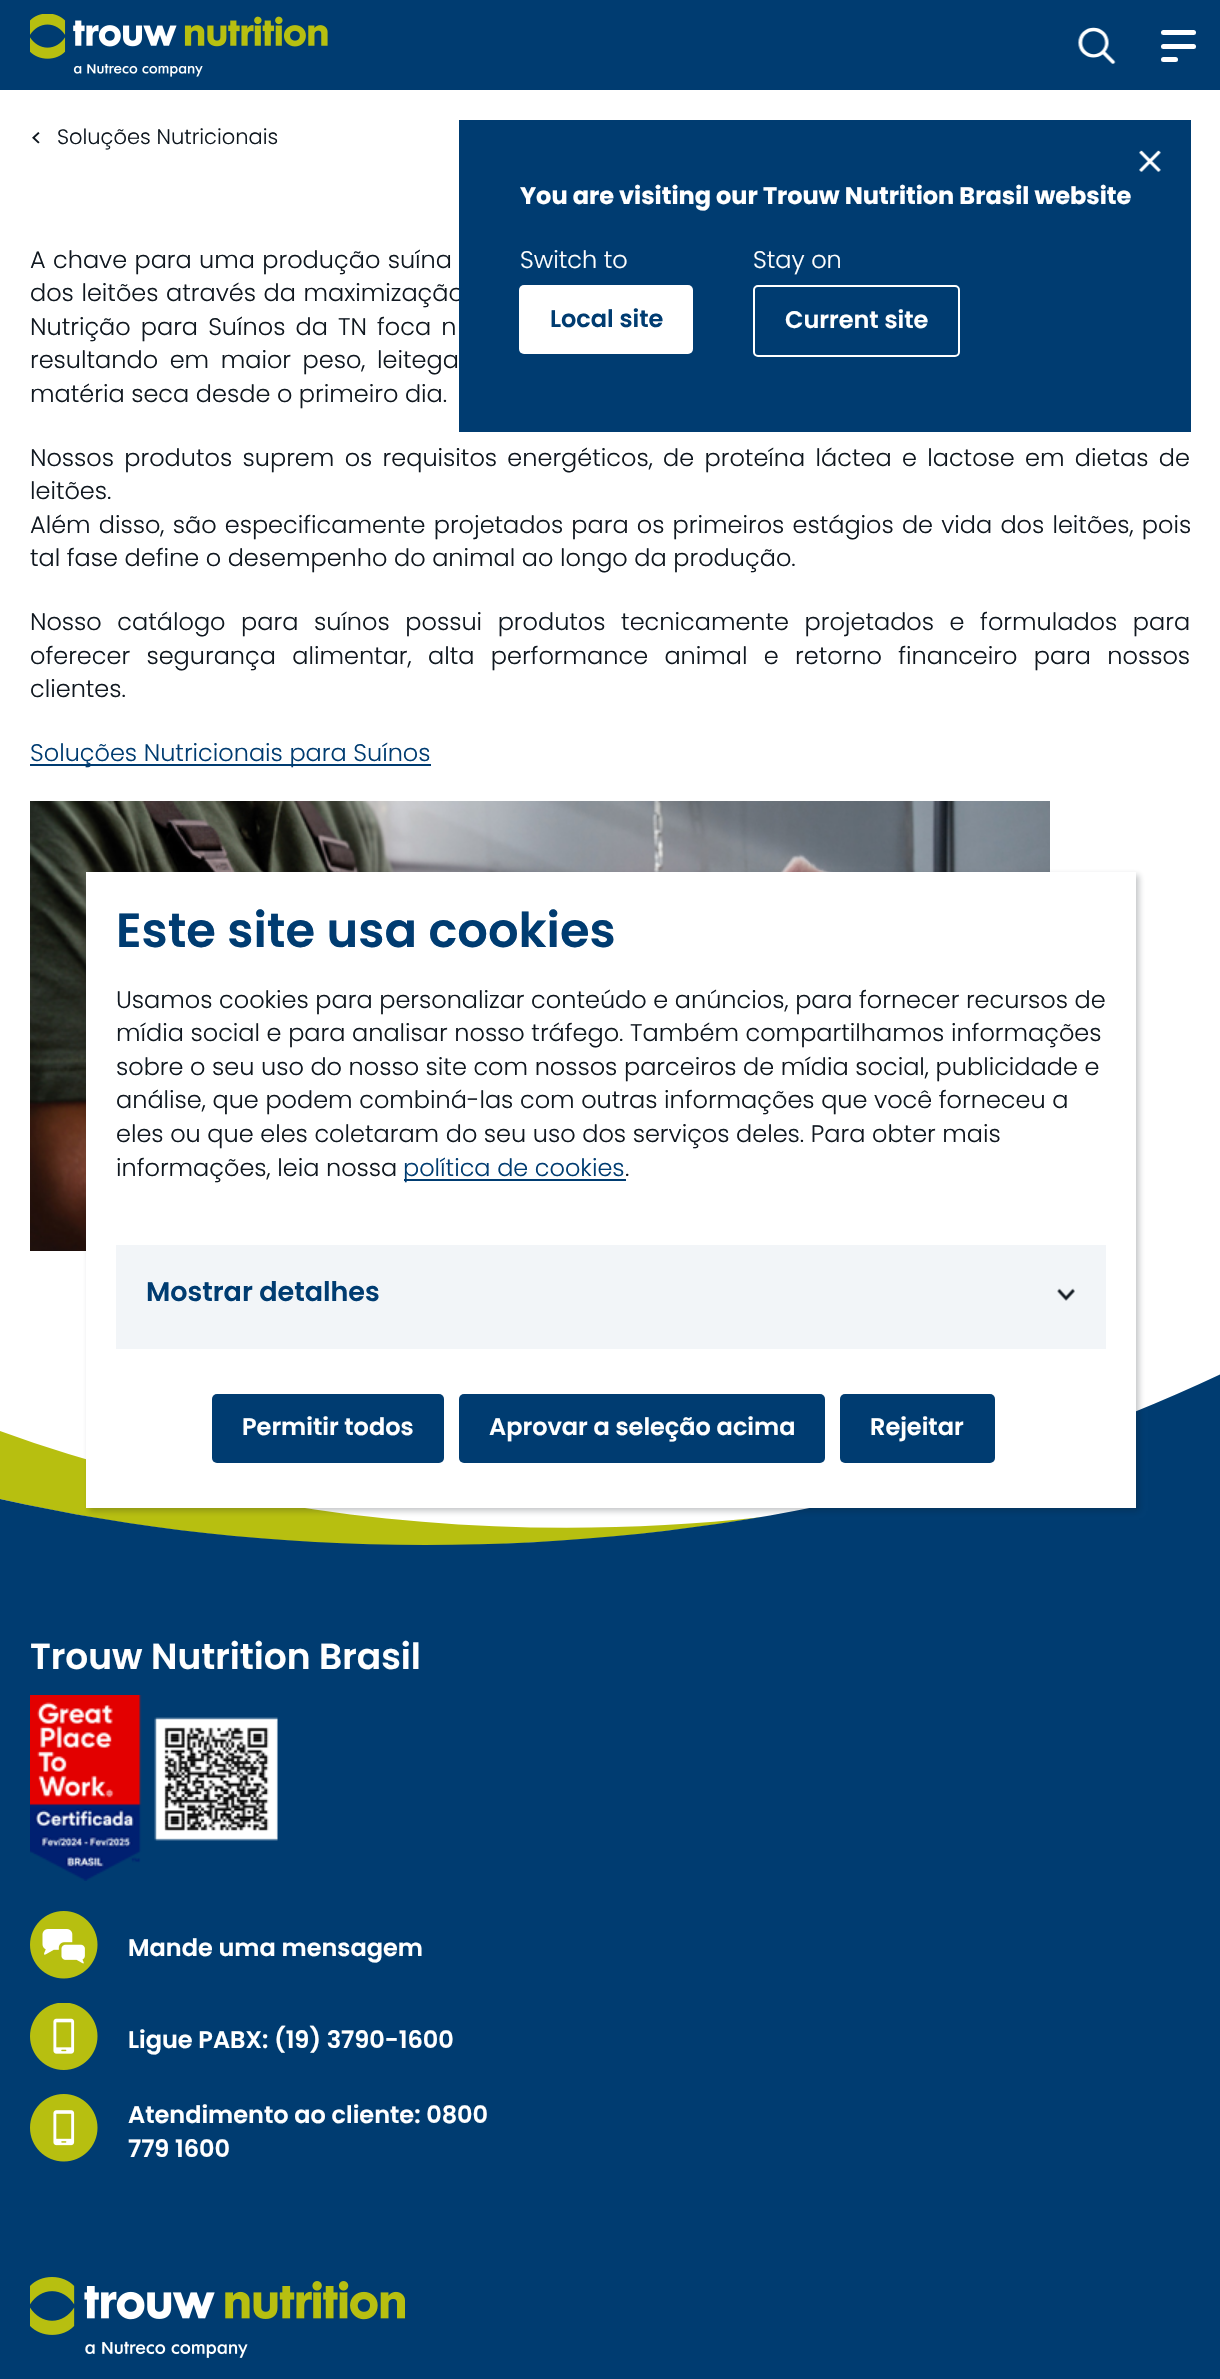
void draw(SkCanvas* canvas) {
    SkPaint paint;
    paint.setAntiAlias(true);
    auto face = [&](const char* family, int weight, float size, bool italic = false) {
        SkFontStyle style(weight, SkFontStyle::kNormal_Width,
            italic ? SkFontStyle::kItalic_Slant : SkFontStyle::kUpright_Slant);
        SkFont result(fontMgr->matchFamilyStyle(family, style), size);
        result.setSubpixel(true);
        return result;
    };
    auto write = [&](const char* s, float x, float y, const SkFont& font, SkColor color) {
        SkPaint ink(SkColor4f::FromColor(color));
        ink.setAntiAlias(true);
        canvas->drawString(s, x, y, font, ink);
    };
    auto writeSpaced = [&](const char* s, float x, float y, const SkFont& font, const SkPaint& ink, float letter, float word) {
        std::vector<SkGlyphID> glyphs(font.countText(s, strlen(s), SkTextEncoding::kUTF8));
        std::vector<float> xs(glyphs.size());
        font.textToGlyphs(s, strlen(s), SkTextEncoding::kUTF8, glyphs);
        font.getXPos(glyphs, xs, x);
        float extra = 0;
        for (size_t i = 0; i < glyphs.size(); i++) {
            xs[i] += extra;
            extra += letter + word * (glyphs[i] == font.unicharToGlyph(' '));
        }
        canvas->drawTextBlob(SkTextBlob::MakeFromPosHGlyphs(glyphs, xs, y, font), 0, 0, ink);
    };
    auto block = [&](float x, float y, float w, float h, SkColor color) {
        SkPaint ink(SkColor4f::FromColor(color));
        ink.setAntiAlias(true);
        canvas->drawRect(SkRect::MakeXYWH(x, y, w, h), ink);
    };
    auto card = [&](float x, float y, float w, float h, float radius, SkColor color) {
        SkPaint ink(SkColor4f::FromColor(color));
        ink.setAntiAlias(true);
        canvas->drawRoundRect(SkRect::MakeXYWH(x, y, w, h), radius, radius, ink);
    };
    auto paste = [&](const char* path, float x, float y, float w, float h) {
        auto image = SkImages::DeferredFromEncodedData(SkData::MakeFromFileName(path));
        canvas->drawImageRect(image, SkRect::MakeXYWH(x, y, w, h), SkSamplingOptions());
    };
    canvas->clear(SK_ColorWHITE);
    block(0, 0, 1220, 90, SkColorSetRGB(0, 60, 113));
    paste("pic1.png", 30, 14, 298, 63);
    paste("pic2.png", 1078, 27, 38, 37);
    card(1161, 30, 35, 5, 2.5f, SK_ColorWHITE);
    card(1161, 44, 35, 5, 2.5f, SK_ColorWHITE);
    card(1161, 57, 17, 5, 2.5f, SK_ColorWHITE);
    paste("pic3.png", 32, 132, 8, 12);
    auto kFont1 = face("Poppins", 300, 21);
    write("Soluções Nutricionais", 57, 144, kFont1, SkColorSetRGB(16, 24, 32));
    auto kFont2 = face("Poppins", 300, 24);
    paint.setColor(SkColorSetRGB(16, 24, 32));
    writeSpaced("A chave para uma produção suína", 30, 268, kFont2, paint, 0, 0.75f);
    writeSpaced("dos leitões através da maximização", 30, 301, kFont2, paint, 0, 1);
    writeSpaced("Nutrição para Suínos da TN foca n", 30, 335, kFont2, paint, 0, 3.5f);
    writeSpaced("resultando em maior peso, leitega", 30, 368, kFont2, paint, 0, 5);
    write("matéria seca desde o primeiro dia.", 30, 402, kFont2, SkColorSetRGB(16, 24, 32));
    writeSpaced("Nossos produtos suprem os requisitos energéticos, de proteína láctea e lactose em dietas de", 30, 466, kFont2, paint, 0, 3.75f);
    write("leitões.", 30, 499, kFont2, SkColorSetRGB(16, 24, 32));
    writeSpaced("Além disso, são especificamente projetados para os primeiros estágios de vida dos leitões, pois", 30, 533, kFont2, paint, 0, 1.6f);
    write("tal fase define o desempenho do animal ao longo da produção.", 30, 566, kFont2, SkColorSetRGB(16, 24, 32));
    writeSpaced("Nosso catálogo para suínos possui produtos tecnicamente projetados e formulados para", 30, 630, kFont2, paint, 0, 9);
    writeSpaced("oferecer segurança alimentar, alta performance animal e retorno financeiro para nossos", 30, 664, kFont2, paint, 0, 9.75f);
    write("clientes.", 30, 697, kFont2, SkColorSetRGB(16, 24, 32));
    block(30, 764, 401, 2, SkColorSetRGB(0, 60, 113));
    write("Soluções Nutricionais para Suínos", 30, 761, kFont2, SkColorSetRGB(0, 60, 113));
    paste("pic4.png", 30, 801, 1020, 450);
    block(459, 120, 732, 312, SkColorSetRGB(0, 60, 113));
    paste("pic5.png", 1139, 150, 22, 22);
    auto kFont3 = face("Poppins", 700, 24);
    write("You are visiting our Trouw Nutrition Brasil website", 520, 204, kFont3, SK_ColorWHITE);
    write("Switch to", 520, 268, kFont2, SK_ColorWHITE);
    card(519, 285, 174, 69, 5, SK_ColorWHITE);
    auto kFont4 = face("Poppins", 600, 24);
    write("Local site", 550, 327, kFont4, SkColorSetRGB(0, 60, 113));
    write("Stay on", 753, 268, kFont2, SK_ColorWHITE);
    paint.setStyle(SkPaint::kStroke_Style);
    paint.setStrokeWidth(2);
    paint.setColor(SK_ColorWHITE);
    canvas->drawRoundRect(SkRect::MakeXYWH(754, 286, 205, 70), 4, 4, paint);
    write("Current site", 785, 328, kFont4, SK_ColorWHITE);
    paint.setStyle(SkPaint::kFill_Style);
    paint.setColor(SkColorSetRGB(183, 191, 16));
    canvas->drawPath(SkPathBuilder(SkPathFillType::kEvenOdd).moveTo(0, 1499).cubicTo(249, 1555, 511, 1560, 763, 1517).cubicTo(507, 1545, 243, 1519, 0, 1431).close().detach(), paint);
    paint.setColor(SkColorSetRGB(0, 60, 113));
    canvas->drawPath(SkPathBuilder(SkPathFillType::kEvenOdd).moveTo(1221, 1374).lineTo(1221, 1577).lineTo(0, 1577).lineTo(0, 1499).cubicTo(135, 1529, 277, 1545, 425, 1545).cubicTo(718, 1545, 991, 1483, 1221, 1374).close().moveTo(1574, 1136).lineTo(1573, 1136).close().detach(), paint);
    paint.setColor(SkColorSetARGB(64, 16, 24, 32));
    paint.setMaskFilter(SkMaskFilter::MakeBlur(kNormal_SkBlurStyle, 3));
    canvas->drawRect(SkRect::MakeXYWH(89, 875, 1050, 636), paint);
    paint.setMaskFilter(nullptr);
    block(86, 872, 1050, 636, SK_ColorWHITE);
    auto kFont5 = face("Poppins", 600, 48);
    write("Este site usa cookies", 116, 947, kFont5, SkColorSetRGB(0, 60, 113));
    write("Usamos cookies para personalizar conteúdo e anúncios, para fornecer recursos de", 116, 1008, kFont2, SkColorSetRGB(16, 24, 32));
    write("mídia social e para analisar nosso tráfego. Também compartilhamos informações", 116, 1041, kFont2, SkColorSetRGB(16, 24, 32));
    write("sobre o seu uso do nosso site com nossos parceiros de mídia social, publicidade e", 116, 1075, kFont2, SkColorSetRGB(16, 24, 32));
    write("análise, que podem combiná-las com outras informações que você forneceu a", 116, 1108, kFont2, SkColorSetRGB(16, 24, 32));
    write("eles ou que eles coletaram do seu uso dos serviços deles. Para obter mais", 116, 1142, kFont2, SkColorSetRGB(16, 24, 32));
    write("informações, leia nossa", 116, 1176, kFont2, SkColorSetRGB(16, 24, 32));
    block(404, 1179, 222, 2, SkColorSetRGB(0, 60, 113));
    write("política de cookies", 403, 1176, kFont2, SkColorSetRGB(0, 60, 113));
    write(".", 625, 1176, kFont2, SkColorSetRGB(16, 24, 32));
    block(116, 1245, 990, 104, SkColorSetRGB(242, 245, 248));
    auto kFont6 = face("Poppins", 600, 27);
    write("Mostrar detalhes", 146, 1301, kFont6, SkColorSetRGB(0, 60, 113));
    paste("pic6.png", 1057, 1288, 18, 13);
    card(212, 1394, 232, 69, 5, SkColorSetRGB(0, 60, 113));
    write("Permitir todos", 242, 1435, kFont4, SK_ColorWHITE);
    card(459, 1394, 366, 69, 5, SkColorSetRGB(0, 60, 113));
    write("Aprovar a seleção acima", 489, 1435, kFont4, SK_ColorWHITE);
    card(840, 1394, 155, 69, 5, SkColorSetRGB(0, 60, 113));
    write("Rejeitar", 870, 1435, kFont4, SK_ColorWHITE);
    block(0, 1577, 1220, 802, SkColorSetRGB(0, 60, 113));
    auto kFont7 = face("Poppins", 600, 36);
    write("Trouw Nutrition Brasil", 30, 1669, kFont7, SK_ColorWHITE);
    paste("pic7.png", 30, 1695, 248, 186);
    paste("pic8.png", 30, 1911, 68, 68);
    write("Mande uma mensagem", 128, 1956, kFont4, SK_ColorWHITE);
    paste("pic9.png", 30, 2003, 68, 67);
    write("Ligue PABX: (19) 3790-1600", 128, 2048, kFont4, SK_ColorWHITE);
    paste("pic10.png", 30, 2094, 68, 68);
    write("Atendimento ao cliente: 0800", 128, 2123, kFont4, SK_ColorWHITE);
    write("779 1600", 128, 2157, kFont4, SK_ColorWHITE);
    paste("pic11.png", 30, 2277, 375, 81);
}
